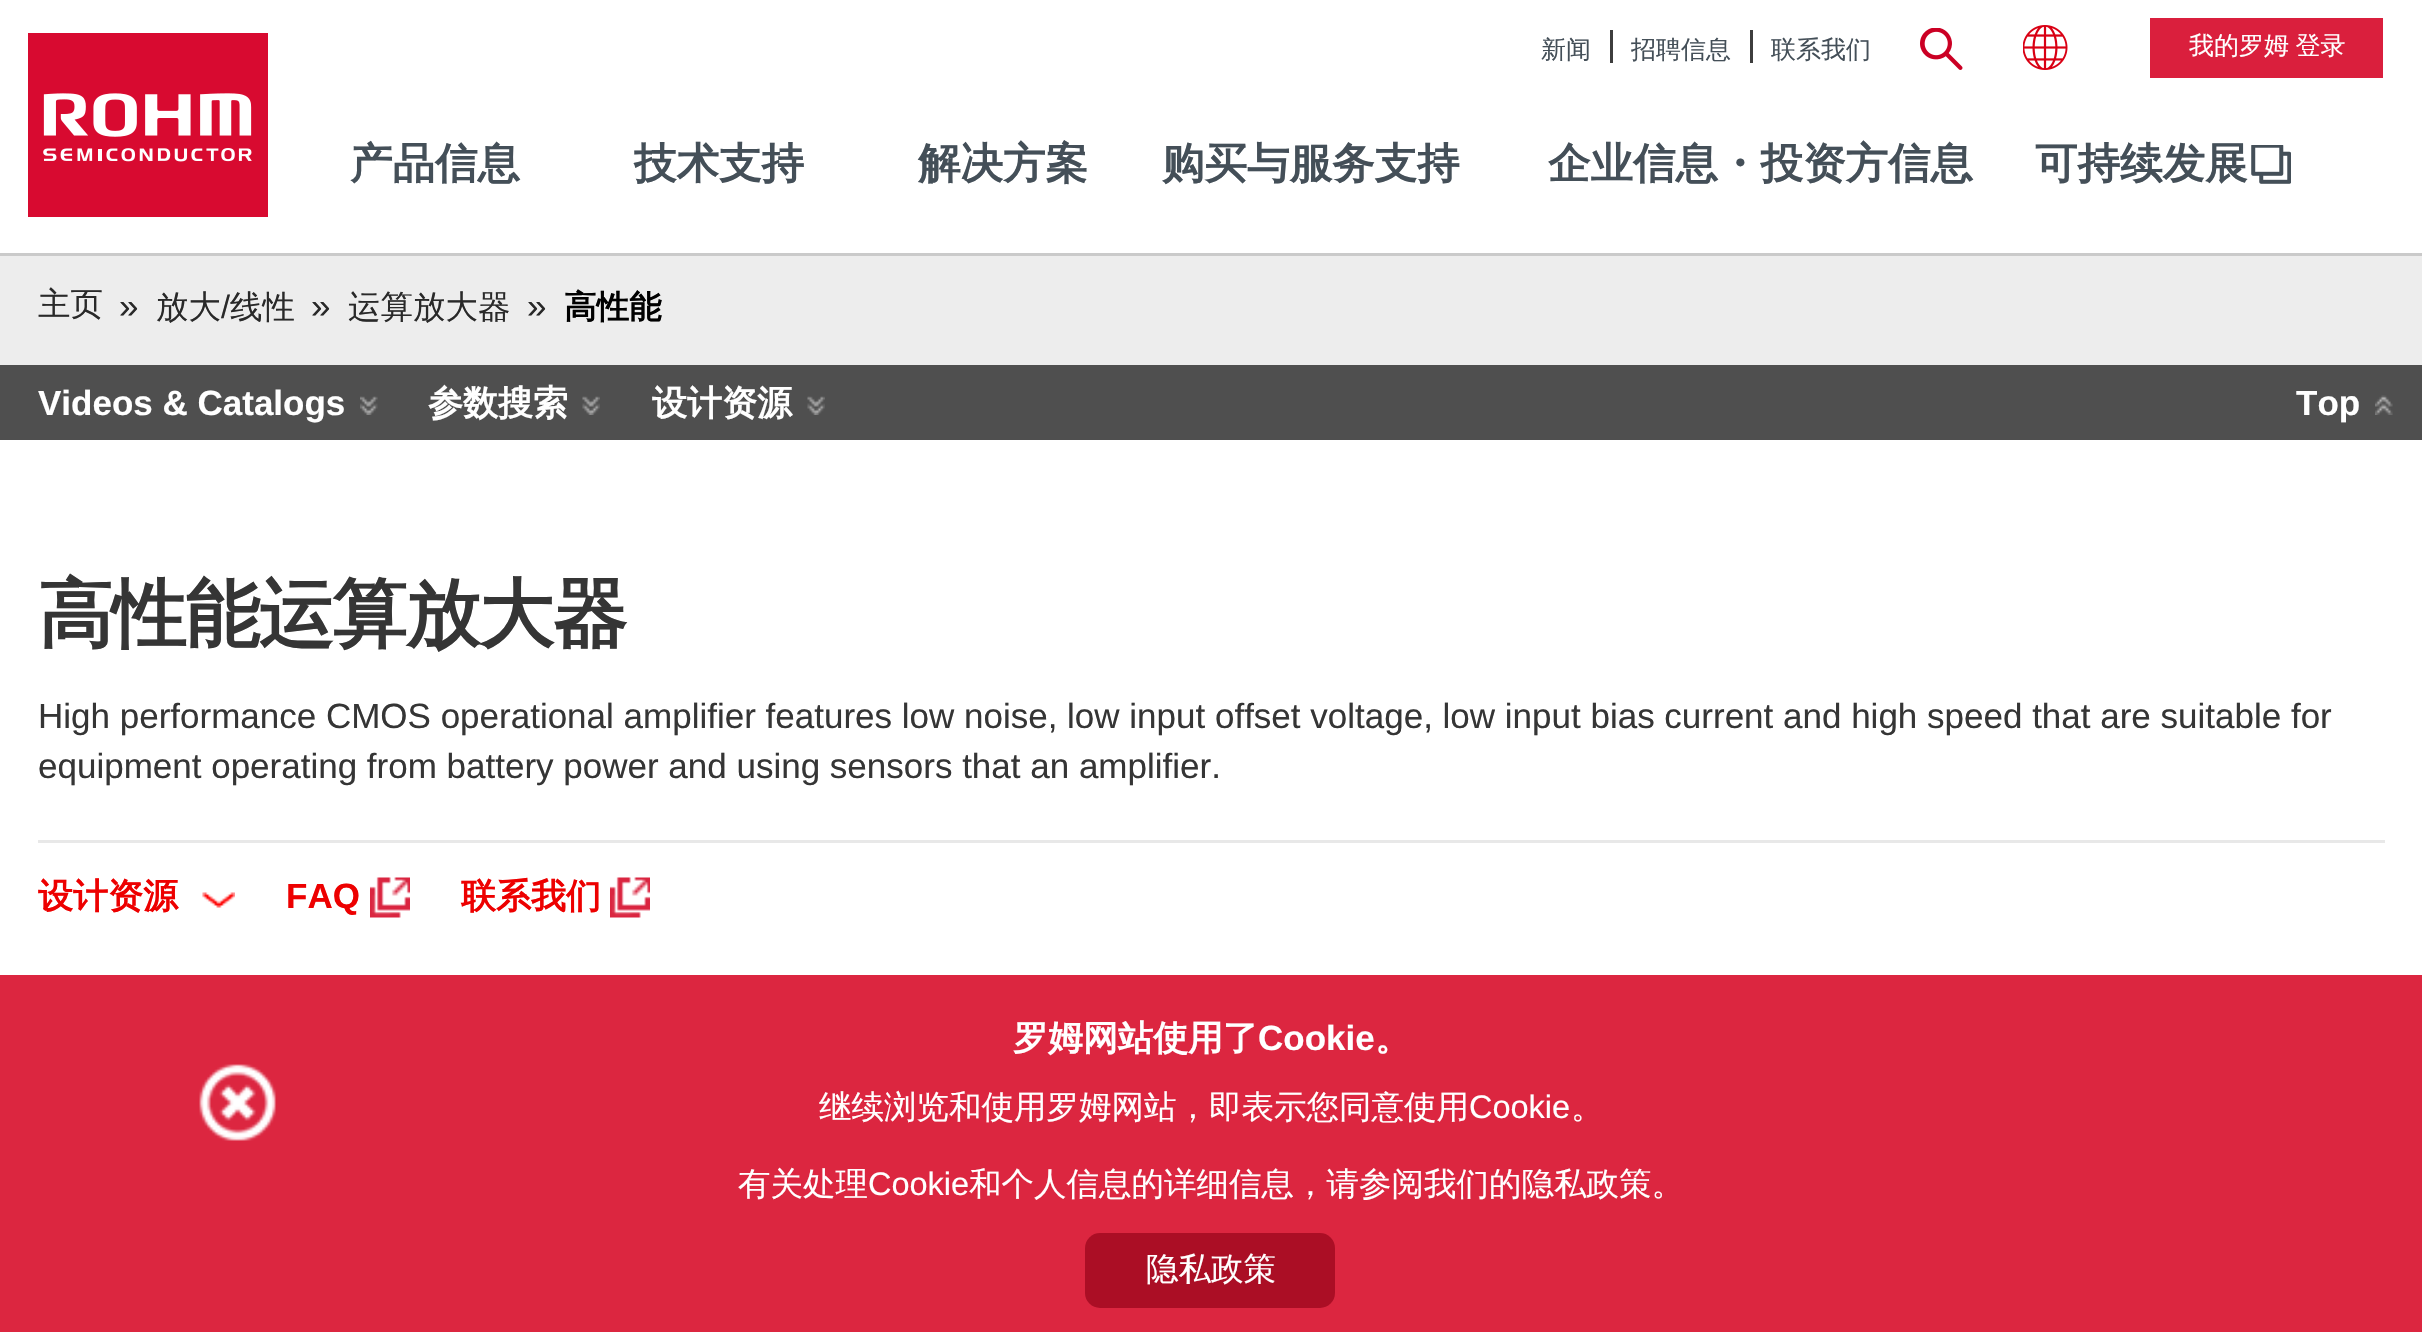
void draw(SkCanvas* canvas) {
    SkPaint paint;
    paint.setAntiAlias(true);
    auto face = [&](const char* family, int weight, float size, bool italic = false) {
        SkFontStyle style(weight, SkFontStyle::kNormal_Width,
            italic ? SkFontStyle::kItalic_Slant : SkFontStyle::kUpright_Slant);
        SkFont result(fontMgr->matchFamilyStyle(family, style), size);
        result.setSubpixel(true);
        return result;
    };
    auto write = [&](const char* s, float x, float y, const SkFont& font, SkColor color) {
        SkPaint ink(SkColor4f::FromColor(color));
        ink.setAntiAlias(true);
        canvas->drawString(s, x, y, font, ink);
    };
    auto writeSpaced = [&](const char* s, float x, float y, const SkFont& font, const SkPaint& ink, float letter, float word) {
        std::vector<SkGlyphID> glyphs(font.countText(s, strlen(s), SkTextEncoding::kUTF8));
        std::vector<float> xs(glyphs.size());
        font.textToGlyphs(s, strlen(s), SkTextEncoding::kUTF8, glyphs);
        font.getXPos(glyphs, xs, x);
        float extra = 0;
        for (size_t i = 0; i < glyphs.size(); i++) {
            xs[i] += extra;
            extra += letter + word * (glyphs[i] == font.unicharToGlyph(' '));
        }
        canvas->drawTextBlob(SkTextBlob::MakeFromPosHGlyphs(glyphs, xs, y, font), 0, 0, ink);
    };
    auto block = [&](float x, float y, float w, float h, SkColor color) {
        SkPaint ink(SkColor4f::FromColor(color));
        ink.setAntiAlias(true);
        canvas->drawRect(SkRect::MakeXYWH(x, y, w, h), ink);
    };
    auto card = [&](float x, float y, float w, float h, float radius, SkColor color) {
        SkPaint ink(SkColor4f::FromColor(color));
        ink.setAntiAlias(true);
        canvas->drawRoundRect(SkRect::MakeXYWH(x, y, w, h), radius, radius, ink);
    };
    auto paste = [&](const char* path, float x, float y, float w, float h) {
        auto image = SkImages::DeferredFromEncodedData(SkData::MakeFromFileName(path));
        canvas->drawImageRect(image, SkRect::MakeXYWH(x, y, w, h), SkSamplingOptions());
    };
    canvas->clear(SK_ColorWHITE);
    paste("pic1.png", 28, 33, 240, 184);
    auto kFont1 = face("WenQuanYi Zen Hei", 500, 25);
    write("新闻", 1541, 58, kFont1, SkColorSetRGB(68, 79, 88));
    block(1610, 30, 3, 33, SkColorSetRGB(61, 61, 61));
    write("招聘信息", 1631, 58, kFont1, SkColorSetRGB(68, 79, 88));
    block(1750, 30, 3, 33, SkColorSetRGB(61, 61, 61));
    write("联系我们", 1771, 58, kFont1, SkColorSetRGB(68, 79, 88));
    paste("pic2.png", 1920, 28, 43, 42);
    paste("pic3.png", 2023, 25, 45, 45);
    block(2150, 18, 233, 60, SkColorSetRGB(218, 31, 61));
    paint.setColor(SK_ColorWHITE);
    writeSpaced("我的罗姆 登录", 2189, 54, kFont1, paint, 0, -1);
    auto kFont2 = face("WenQuanYi Zen Hei", 700, 42.5f);
    write("产品信息", 350, 178, kFont2, SkColorSetRGB(68, 79, 88));
    write("技术支持", 634, 178, kFont2, SkColorSetRGB(68, 79, 88));
    write("解决方案", 918, 178, kFont2, SkColorSetRGB(68, 79, 88));
    write("购买与服务支持", 1162, 178, kFont2, SkColorSetRGB(68, 79, 88));
    write("企业信息・投资方信息", 1548, 178, kFont2, SkColorSetRGB(68, 79, 88));
    write("可持续发展", 2035, 178, kFont2, SkColorSetRGB(68, 79, 88));
    paste("pic4.png", 2251, 145, 40, 39);
    block(0, 256, 2422, 109, SkColorSetRGB(237, 237, 237));
    block(0, 253, 2422, 3, SkColorSetRGB(202, 202, 202));
    auto kFont3 = face("WenQuanYi Zen Hei", 500, 32.5f);
    write("主页", 38, 315, kFont3, SkColorSetRGB(41, 41, 41));
    auto kFont4 = face("Liberation Sans", 400, 35);
    write("»", 119, 318, kFont4, SkColorSetRGB(41, 41, 41));
    write("放大", 156, 318, kFont3, SkColorSetRGB(41, 41, 41));
    auto kFont5 = face("Liberation Sans", 400, 32.5f);
    write("/", 221, 318, kFont5, SkColorSetRGB(41, 41, 41));
    write("线性", 230, 318, kFont3, SkColorSetRGB(41, 41, 41));
    write("»", 311, 318, kFont4, SkColorSetRGB(41, 41, 41));
    write("运算放大器", 348, 318, kFont3, SkColorSetRGB(41, 41, 41));
    write("»", 527, 318, kFont4, SkColorSetRGB(41, 41, 41));
    auto kFont6 = face("WenQuanYi Zen Hei", 700, 32.5f);
    write("高性能", 564, 318, kFont6, SK_ColorBLACK);
    block(0, 365, 2422, 75, SkColorSetRGB(79, 79, 79));
    auto kFont7 = face("Liberation Sans", 700, 35);
    write("Videos & Catalogs", 38, 415, kFont7, SK_ColorWHITE);
    paste("pic5.png", 360, 396, 18, 19);
    auto kFont8 = face("WenQuanYi Zen Hei", 700, 35);
    write("参数搜索", 428, 415, kFont8, SK_ColorWHITE);
    paste("pic6.png", 582, 396, 18, 19);
    write("设计资源", 652, 415, kFont8, SK_ColorWHITE);
    paste("pic6.png", 807, 396, 18, 19);
    write("Top", 2296, 415, kFont7, SK_ColorWHITE);
    paste("pic7.png", 2375, 395, 18, 20);
    auto kFont9 = face("WenQuanYi Zen Hei", 700, 75);
    paint.setColor(SkColorSetRGB(53, 53, 53));
    writeSpaced("高性能运算放大器", 38, 640, kFont9, paint, -1.5f, 0);
    write("High performance CMOS operational amplifier features low noise, low input offset voltage, low input bias current and high speed that are suitable for", 38, 728, kFont4, SkColorSetRGB(53, 53, 53));
    write("equipment operating from battery power and using sensors that an amplifier.", 38, 778, kFont4, SkColorSetRGB(53, 53, 53));
    block(38, 840, 2347, 3, SkColorSetRGB(232, 232, 232));
    write("设计资源", 38, 908, kFont8, SkColorSetRGB(237, 0, 0));
    paste("pic8.png", 202, 892, 33, 16);
    write("FAQ", 286, 908, kFont7, SkColorSetRGB(237, 0, 0));
    paste("pic9.png", 370, 877, 40, 41);
    write("联系我们", 461, 908, kFont8, SkColorSetRGB(237, 0, 0));
    paste("pic9.png", 610, 877, 40, 41);
    block(0, 975, 2422, 357, SkColorSetRGB(220, 38, 64));
    write("罗姆网站使用了", 1013, 1050, kFont8, SK_ColorWHITE);
    write("Cookie", 1258, 1050, kFont7, SK_ColorWHITE);
    write("。", 1375, 1050, kFont8, SK_ColorWHITE);
    paste("pic10.png", 199, 1064, 77, 77);
    write("继续浏览和使用罗姆网站，即表示您同意使用", 819, 1118, kFont3, SK_ColorWHITE);
    write("Cookie", 1469, 1118, kFont5, SK_ColorWHITE);
    write("。", 1571, 1118, kFont3, SK_ColorWHITE);
    write("有关处理", 738, 1195, kFont3, SK_ColorWHITE);
    write("Cookie", 868, 1195, kFont5, SK_ColorWHITE);
    write("和个人信息的详细信息，请参阅我们的隐私政策。", 969, 1195, kFont3, SK_ColorWHITE);
    card(1085, 1233, 250, 75, 15, SkColorSetRGB(171, 14, 37));
    write("隐私政策", 1146, 1280, kFont3, SK_ColorWHITE);
}
